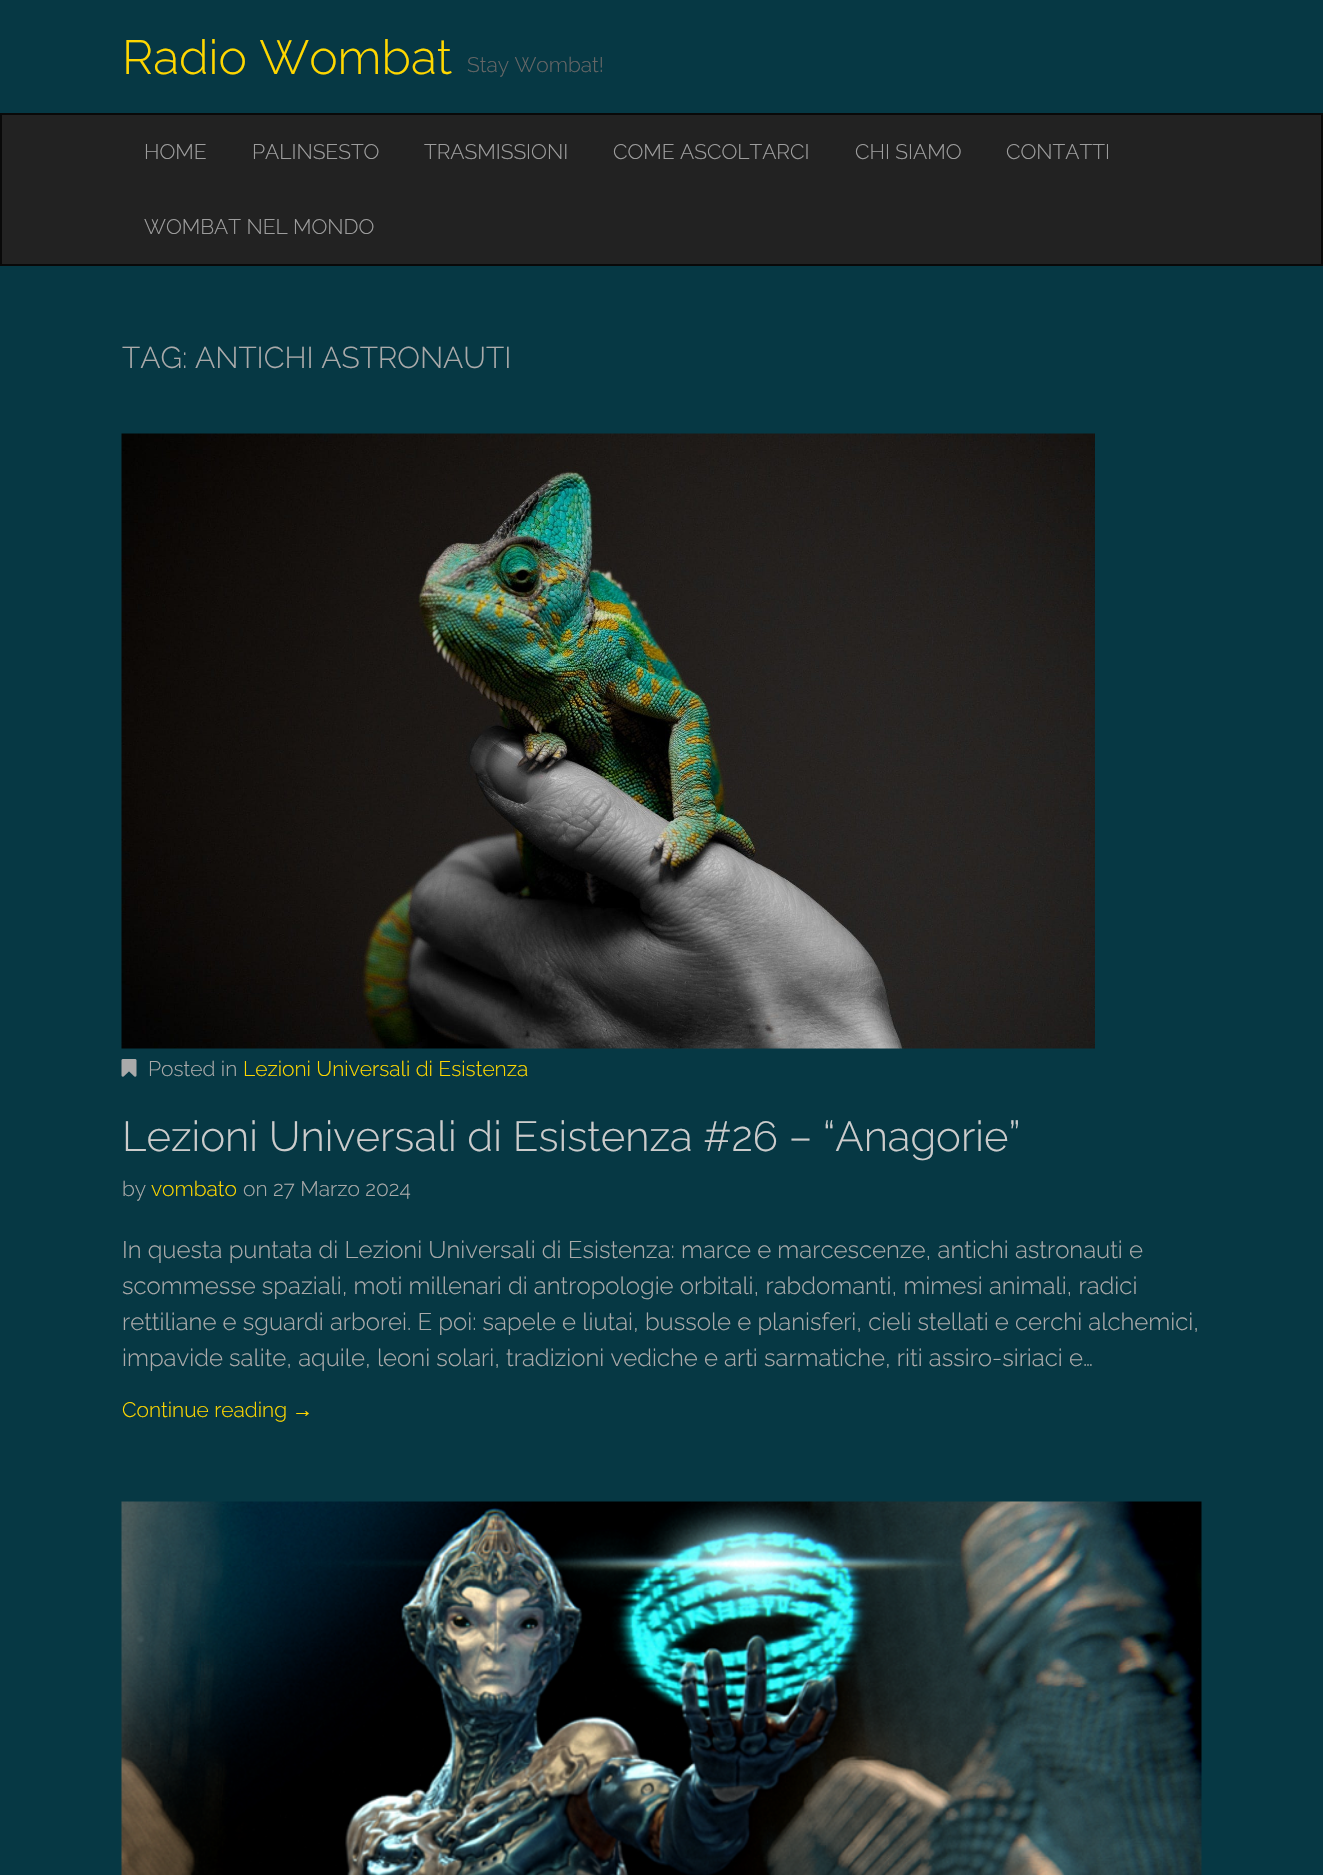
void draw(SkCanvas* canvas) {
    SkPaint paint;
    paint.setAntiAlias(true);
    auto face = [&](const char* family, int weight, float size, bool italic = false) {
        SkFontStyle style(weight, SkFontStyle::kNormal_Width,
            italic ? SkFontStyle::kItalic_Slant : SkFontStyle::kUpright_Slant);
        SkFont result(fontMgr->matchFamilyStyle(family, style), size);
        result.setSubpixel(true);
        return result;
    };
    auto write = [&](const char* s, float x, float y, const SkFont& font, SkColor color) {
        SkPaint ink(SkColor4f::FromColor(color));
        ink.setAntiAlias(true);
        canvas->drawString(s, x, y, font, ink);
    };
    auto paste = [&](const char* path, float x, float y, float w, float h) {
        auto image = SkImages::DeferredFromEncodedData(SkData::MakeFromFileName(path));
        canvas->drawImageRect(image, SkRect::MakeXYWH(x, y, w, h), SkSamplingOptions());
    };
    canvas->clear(SkColorSetRGB(6, 56, 68));
    auto kFont1 = face("Raleway", 300, 48);
    write("Radio Wombat", 122, 74, kFont1, SkColorSetRGB(255, 215, 0));
    auto kFont2 = face("Raleway", 300, 21);
    write("Stay Wombat!", 467, 72, kFont2, SkColorSetRGB(102, 102, 102));
    paint.setColor(SkColorSetRGB(34, 34, 34));
    canvas->drawRect(SkRect::MakeXYWH(1, 114, 1321, 151), paint);
    paint.setStyle(SkPaint::kStroke_Style);
    paint.setStrokeWidth(2);
    paint.setColor(SkColorSetRGB(9, 9, 9));
    canvas->drawRect(SkRect::MakeXYWH(1, 114, 1321, 151), paint);
    write("HOME", 144, 159, kFont2, SkColorSetRGB(157, 157, 157));
    write("PALINSESTO", 252, 159, kFont2, SkColorSetRGB(157, 157, 157));
    write("TRASMISSIONI", 424, 159, kFont2, SkColorSetRGB(157, 157, 157));
    write("COME ASCOLTARCI", 613, 159, kFont2, SkColorSetRGB(157, 157, 157));
    write("CHI SIAMO", 855, 159, kFont2, SkColorSetRGB(157, 157, 157));
    write("CONTATTI", 1006, 159, kFont2, SkColorSetRGB(157, 157, 157));
    write("WOMBAT NEL MONDO", 144, 234, kFont2, SkColorSetRGB(157, 157, 157));
    auto kFont3 = face("Raleway", 300, 30);
    write("TAG: ANTICHI ASTRONAUTI", 122, 368, kFont3, SkColorSetRGB(170, 170, 170));
    paste("pic1.png", 121, 433, 974, 616);
    paste("pic2.png", 121, 1059, 16, 18);
    write("Posted in", 148, 1076, kFont2, SkColorSetRGB(170, 170, 170));
    write("Lezioni Universali di Esistenza", 243, 1076, kFont2, SkColorSetRGB(255, 215, 0));
    auto kFont4 = face("Raleway", 300, 42);
    write("Lezioni Universali di Esistenza #26 – “Anagorie”", 122, 1151, kFont4, SkColorSetRGB(204, 204, 204));
    write("by", 122, 1196, kFont2, SkColorSetRGB(170, 170, 170));
    write("vombato", 151, 1196, kFont2, SkColorSetRGB(255, 215, 0));
    write("on 27 Marzo 2024", 243, 1196, kFont2, SkColorSetRGB(170, 170, 170));
    auto kFont5 = face("Raleway", 300, 24);
    write("In questa puntata di Lezioni Universali di Esistenza: marce e marcescenze, antichi astronauti e", 122, 1258, kFont5, SkColorSetRGB(170, 170, 170));
    write("scommesse spaziali, moti millenari di antropologie orbitali, rabdomanti, mimesi animali, radici", 122, 1294, kFont5, SkColorSetRGB(170, 170, 170));
    write("rettiliane e sguardi arborei. E poi: sapele e liutai, bussole e planisferi, cieli stellati e cerchi alchemici,", 122, 1330, kFont5, SkColorSetRGB(170, 170, 170));
    write("impavide salite, aquile, leoni solari, tradizioni vediche e arti sarmatiche, riti assiro-siriaci e…", 122, 1366, kFont5, SkColorSetRGB(170, 170, 170));
    write("Continue reading", 122, 1417, kFont2, SkColorSetRGB(255, 215, 0));
    auto kFont6 = face("Liberation Sans", 400, 21);
    write("→", 292, 1417, kFont6, SkColorSetRGB(255, 215, 0));
    paste("pic3.png", 121, 1501, 1081, 374);
}
